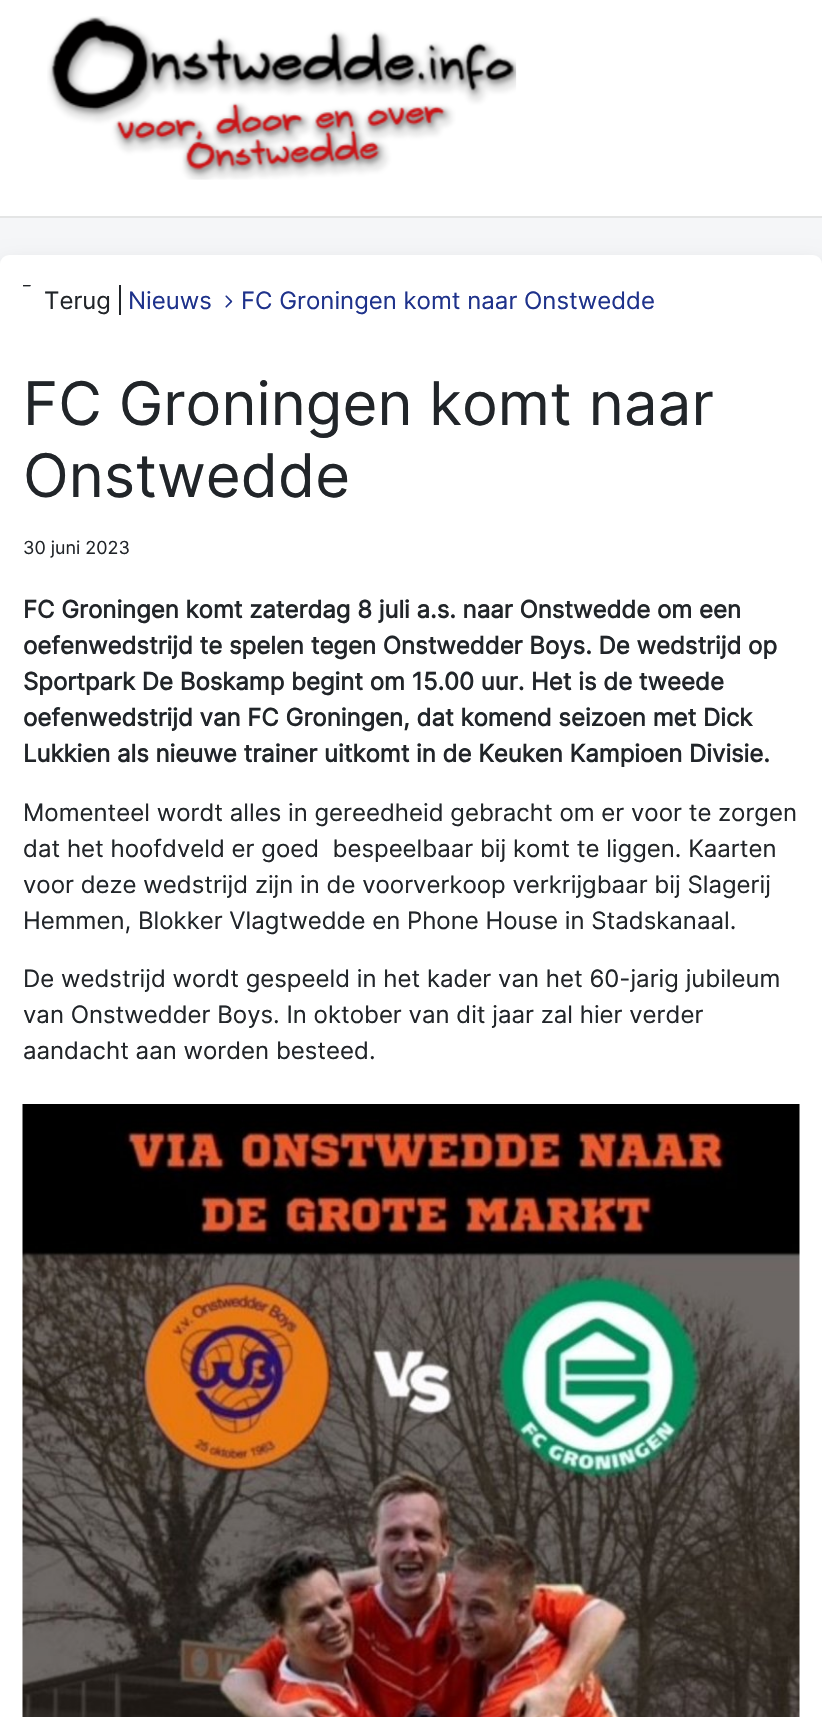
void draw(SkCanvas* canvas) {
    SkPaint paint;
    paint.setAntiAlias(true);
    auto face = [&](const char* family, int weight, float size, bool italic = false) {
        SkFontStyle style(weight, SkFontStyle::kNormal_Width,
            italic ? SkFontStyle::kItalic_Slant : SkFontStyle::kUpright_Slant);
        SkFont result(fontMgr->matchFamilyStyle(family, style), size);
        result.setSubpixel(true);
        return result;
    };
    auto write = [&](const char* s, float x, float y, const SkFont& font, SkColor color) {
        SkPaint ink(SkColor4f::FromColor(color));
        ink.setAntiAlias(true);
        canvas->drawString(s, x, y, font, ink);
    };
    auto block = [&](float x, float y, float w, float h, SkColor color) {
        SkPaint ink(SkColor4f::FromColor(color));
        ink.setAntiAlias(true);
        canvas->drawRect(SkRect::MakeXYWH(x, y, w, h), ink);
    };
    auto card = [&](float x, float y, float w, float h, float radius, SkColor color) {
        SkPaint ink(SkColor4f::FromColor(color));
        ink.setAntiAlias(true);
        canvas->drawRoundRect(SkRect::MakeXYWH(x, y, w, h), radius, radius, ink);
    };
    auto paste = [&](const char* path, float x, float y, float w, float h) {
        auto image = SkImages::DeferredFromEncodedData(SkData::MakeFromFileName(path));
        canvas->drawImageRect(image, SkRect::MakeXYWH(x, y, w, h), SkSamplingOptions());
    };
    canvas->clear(SkColorSetRGB(245, 246, 248));
    block(0, 0, 822, 216, SK_ColorWHITE);
    block(0, 216, 822, 2, SkColorSetRGB(228, 229, 229));
    paste("pic1.png", 47, 16, 470, 164);
    paint.setColor(SkColorSetARGB(38, 0, 0, 0));
    paint.setMaskFilter(SkMaskFilter::MakeBlur(kNormal_SkBlurStyle, 12));
    canvas->drawRoundRect(SkRect::MakeXYWH(0, 267, 822, 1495), 9, 9, paint);
    paint.setMaskFilter(nullptr);
    card(0, 255, 822, 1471, 9, SK_ColorWHITE);
    paste("pic2.png", 23, 285, 8, 2);
    auto kFont1 = face("Inter", 400, 24);
    write("Terug", 44, 309, kFont1, SkColorSetRGB(33, 37, 41));
    block(119, 285, 2, 30, SkColorSetRGB(33, 37, 41));
    write("Nieuws", 128, 309, kFont1, SkColorSetRGB(30, 50, 139));
    paste("pic3.png", 225, 295, 8, 13);
    write("FC Groningen komt naar Onstwedde", 241, 309, kFont1, SkColorSetRGB(30, 50, 139));
    auto kFont2 = face("Inter", 400, 60);
    write("FC Groningen komt naar", 23, 425, kFont2, SkColorSetRGB(33, 37, 41));
    write("Onstwedde", 23, 497, kFont2, SkColorSetRGB(33, 37, 41));
    auto kFont3 = face("Inter", 400, 18);
    write("30 juni 2023", 23, 554, kFont3, SkColorSetRGB(33, 37, 41));
    auto kFont4 = face("Inter", 700, 24);
    write("FC Groningen komt zaterdag 8 juli a.s. naar Onstwedde om een", 23, 618, kFont4, SkColorSetRGB(33, 37, 41));
    write("oefenwedstrijd te spelen tegen Onstwedder Boys. De wedstrijd op", 23, 654, kFont4, SkColorSetRGB(33, 37, 41));
    write("Sportpark De Boskamp begint om 15.00 uur. Het is de tweede", 23, 690, kFont4, SkColorSetRGB(33, 37, 41));
    write("oefenwedstrijd van FC Groningen, dat komend seizoen met Dick", 23, 726, kFont4, SkColorSetRGB(33, 37, 41));
    write("Lukkien als nieuwe trainer uitkomt in de Keuken Kampioen Divisie.", 23, 762, kFont4, SkColorSetRGB(33, 37, 41));
    write("Momenteel wordt alles in gereedheid gebracht om er voor te zorgen", 23, 821, kFont1, SkColorSetRGB(33, 37, 41));
    write("dat het hoofdveld er goed  bespeelbaar bij komt te liggen. Kaarten", 23, 857, kFont1, SkColorSetRGB(33, 37, 41));
    write("voor deze wedstrijd zijn in de voorverkoop verkrijgbaar bij Slagerij", 23, 893, kFont1, SkColorSetRGB(33, 37, 41));
    write("Hemmen, Blokker Vlagtwedde en Phone House in Stadskanaal.", 23, 929, kFont1, SkColorSetRGB(33, 37, 41));
    write("De wedstrijd wordt gespeeld in het kader van het 60-jarig jubileum", 23, 987, kFont1, SkColorSetRGB(33, 37, 41));
    write("van Onstwedder Boys. In oktober van dit jaar zal hier verder", 23, 1023, kFont1, SkColorSetRGB(33, 37, 41));
    write("aandacht aan worden besteed.", 23, 1059, kFont1, SkColorSetRGB(33, 37, 41));
    paste("pic4.png", 22, 1104, 778, 613);
}
